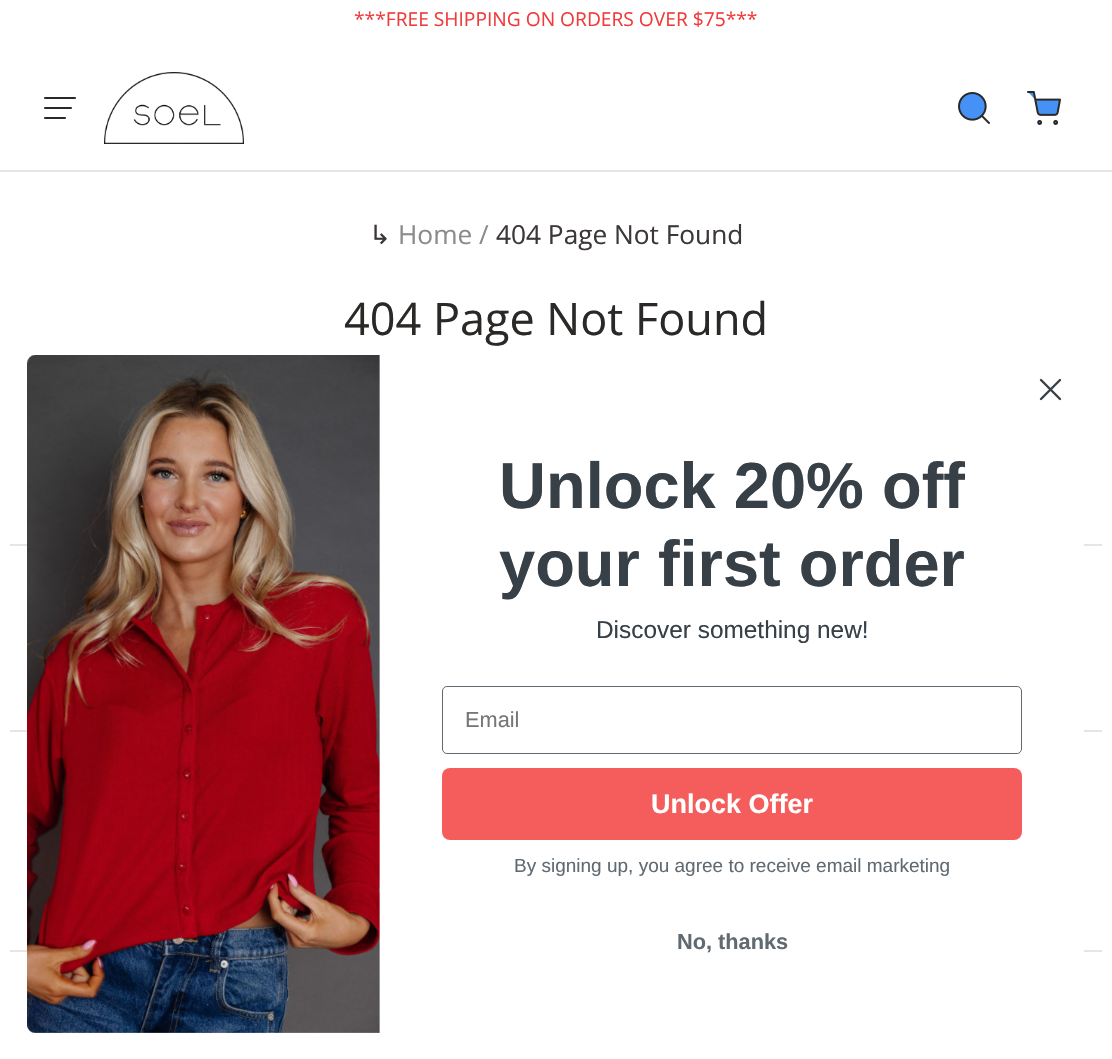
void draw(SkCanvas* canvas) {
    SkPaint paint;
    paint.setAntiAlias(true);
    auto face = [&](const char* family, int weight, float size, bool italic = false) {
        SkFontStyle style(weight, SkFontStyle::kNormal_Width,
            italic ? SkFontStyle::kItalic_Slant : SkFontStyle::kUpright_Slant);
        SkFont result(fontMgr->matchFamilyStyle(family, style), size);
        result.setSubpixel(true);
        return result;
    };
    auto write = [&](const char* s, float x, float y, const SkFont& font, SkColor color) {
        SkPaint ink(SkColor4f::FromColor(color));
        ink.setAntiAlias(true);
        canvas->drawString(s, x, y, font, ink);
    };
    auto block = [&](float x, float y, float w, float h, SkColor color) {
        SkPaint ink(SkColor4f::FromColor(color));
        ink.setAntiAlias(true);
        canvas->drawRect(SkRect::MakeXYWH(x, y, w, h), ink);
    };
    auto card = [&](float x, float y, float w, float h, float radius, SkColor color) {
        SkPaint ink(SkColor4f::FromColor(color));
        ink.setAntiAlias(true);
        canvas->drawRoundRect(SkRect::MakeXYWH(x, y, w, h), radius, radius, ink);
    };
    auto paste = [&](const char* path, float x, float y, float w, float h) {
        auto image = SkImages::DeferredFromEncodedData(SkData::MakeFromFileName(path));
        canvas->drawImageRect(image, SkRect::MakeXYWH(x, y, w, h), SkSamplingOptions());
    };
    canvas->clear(SK_ColorWHITE);
    auto kFont1 = face("Open Sans", 400, 19.2f);
    write("***FREE SHIPPING ON ORDERS OVER $75***", 354, 26, kFont1, SkColorSetRGB(240, 59, 59));
    block(0, 170, 1112, 2, SkColorSetRGB(229, 229, 229));
    paste("pic1.png", 44, 97, 32, 22);
    paste("pic2.png", 104, 72, 140, 72);
    paste("pic3.png", 958, 92, 32, 32);
    paste("pic4.png", 1027, 91, 34, 34);
    auto kFont2 = face("DejaVu Sans", 400, 26.25f);
    write("↳", 369, 244, kFont2, SkColorSetRGB(61, 56, 56));
    auto kFont3 = face("Open Sans", 400, 26.25f);
    write("Home", 398, 244, kFont3, SkColorSetRGB(139, 139, 139));
    write("/", 479, 244, kFont3, SkColorSetRGB(139, 139, 139));
    write("404 Page Not Found", 496, 244, kFont3, SkColorSetRGB(61, 56, 56));
    auto kFont4 = face("Open Sans", 400, 45);
    write("404 Page Not Found", 344, 335, kFont4, SkColorSetRGB(43, 41, 39));
    block(10, 544, 1092, 2, SkColorSetRGB(229, 229, 229));
    block(10, 730, 1092, 2, SkColorSetRGB(229, 229, 229));
    block(10, 950, 1092, 2, SkColorSetRGB(229, 229, 229));
    card(28, 354, 1056, 678, 8, SK_ColorWHITE);
    paint.setStyle(SkPaint::kStroke_Style);
    paint.setStrokeWidth(2.4f);
    paint.setStrokeCap(SkPaint::kRound_Cap);
    paint.setStrokeJoin(SkPaint::kRound_Join);
    paint.setColor(SkColorSetRGB(55, 63, 71));
    canvas->drawPath(SkPathBuilder().moveTo(1041, 380).lineTo(1060, 399).moveTo(1041, 399).lineTo(1060, 380).close().detach(), paint);
    paste("pic5.png", 27, 355, 353, 678);
    auto kFont5 = face("Liberation Sans", 700, 65);
    write("Unlock 20% off", 499, 508, kFont5, SkColorSetRGB(55, 63, 71));
    write("your first order", 499, 586, kFont5, SkColorSetRGB(55, 63, 71));
    auto kFont6 = face("Liberation Sans", 400, 24.4f);
    write("Discover something new!", 596, 638, kFont6, SkColorSetRGB(55, 63, 71));
    paint.setStrokeWidth(1);
    paint.setStrokeCap(SkPaint::kButt_Cap);
    paint.setStrokeJoin(SkPaint::kMiter_Join);
    paint.setColor(SkColorSetRGB(96, 106, 114));
    canvas->drawRoundRect(SkRect::MakeXYWH(442.5f, 686.5f, 579, 67), 4.5f, 4.5f, paint);
    auto kFont7 = face("Liberation Sans", 400, 21.75f);
    write("Email", 465, 727, kFont7, SkColorSetRGB(118, 118, 118));
    card(442, 768, 580, 72, 8, SkColorSetRGB(245, 92, 92));
    auto kFont8 = face("Liberation Sans", 700, 27);
    write("Unlock Offer", 651, 813, kFont8, SK_ColorWHITE);
    auto kFont9 = face("Liberation Sans", 400, 19);
    write("By signing up, you agree to receive email marketing", 514, 872, kFont9, SkColorSetRGB(96, 106, 114));
    auto kFont10 = face("Liberation Sans", 700, 21.75f);
    write("No, thanks", 677, 949, kFont10, SkColorSetRGB(96, 106, 114));
}
